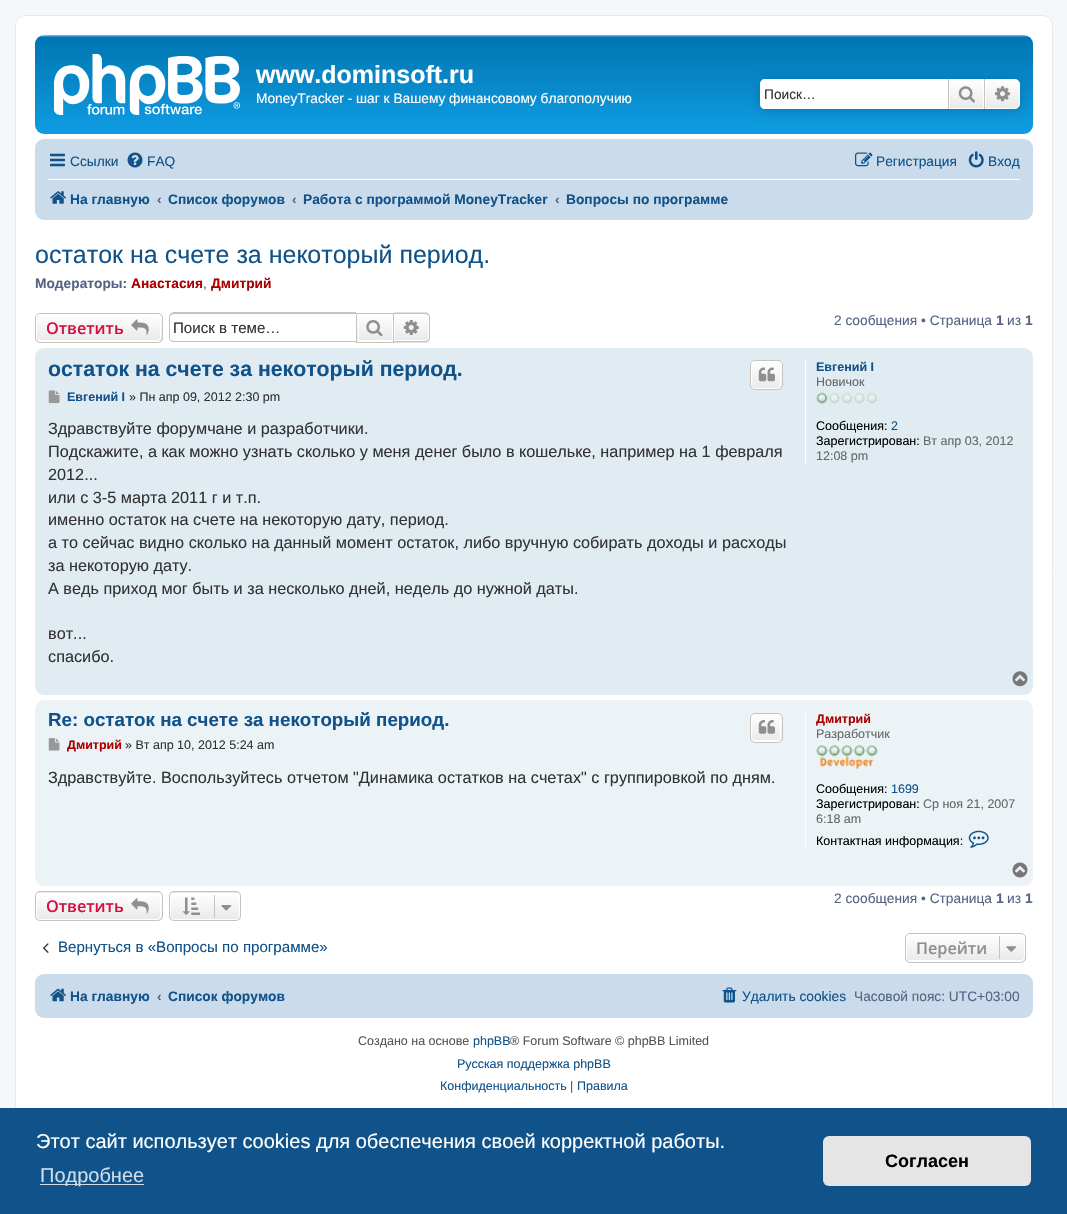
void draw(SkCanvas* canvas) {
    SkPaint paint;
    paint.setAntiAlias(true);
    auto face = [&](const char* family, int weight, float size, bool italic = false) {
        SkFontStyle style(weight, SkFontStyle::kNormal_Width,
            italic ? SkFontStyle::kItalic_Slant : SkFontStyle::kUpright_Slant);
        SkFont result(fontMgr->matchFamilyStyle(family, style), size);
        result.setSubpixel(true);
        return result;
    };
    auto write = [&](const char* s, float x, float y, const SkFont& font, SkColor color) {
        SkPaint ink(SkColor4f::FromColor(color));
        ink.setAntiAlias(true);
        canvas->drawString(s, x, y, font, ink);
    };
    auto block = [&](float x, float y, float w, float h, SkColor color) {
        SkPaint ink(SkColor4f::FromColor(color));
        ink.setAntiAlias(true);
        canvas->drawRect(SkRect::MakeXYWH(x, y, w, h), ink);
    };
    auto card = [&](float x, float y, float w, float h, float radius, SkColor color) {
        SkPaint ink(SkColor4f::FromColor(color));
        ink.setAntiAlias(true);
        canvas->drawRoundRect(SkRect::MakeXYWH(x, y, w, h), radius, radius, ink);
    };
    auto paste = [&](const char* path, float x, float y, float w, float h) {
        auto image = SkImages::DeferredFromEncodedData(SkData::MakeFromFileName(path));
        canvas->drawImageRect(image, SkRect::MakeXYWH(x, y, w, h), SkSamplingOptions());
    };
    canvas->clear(SkColorSetRGB(245, 247, 250));
    paint.setColor(SK_ColorWHITE);
    canvas->drawRoundRect(SkRect::MakeXYWH(15.5f, 15.5f, 1037, 1114), 9.5f, 9.5f, paint);
    paint.setStyle(SkPaint::kStroke_Style);
    paint.setStrokeWidth(1);
    paint.setColor(SkColorSetRGB(230, 233, 237));
    canvas->drawRoundRect(SkRect::MakeXYWH(15.5f, 15.5f, 1037, 1114), 9.5f, 9.5f, paint);
    paint.setStyle(SkPaint::kFill_Style);
    {
        const SkColor colors[] = {SkColorSetRGB(106, 206, 255), SkColorSetRGB(0, 118, 177), SkColorSetRGB(18, 163, 235)};
        const float stops[] = {0, 0.02f, 1};
        const SkPoint ends[] = {{534, 35}, {534, 150}};
        paint.setShader(SkGradientShader::MakeLinear(ends, colors, stops, 3, SkTileMode::kClamp));
        paint.setAlpha(255);
    }
    canvas->drawRoundRect(SkRect::MakeXYWH(35, 35, 998, 99), 9, 9, paint);
    paste("pic1.png", 54, 54, 186, 61);
    auto kFont1 = face("Liberation Sans", 700, 25);
    write("www.dominsoft.ru", 256, 83, kFont1, SK_ColorWHITE);
    auto kFont2 = face("Liberation Sans", 400, 13.75f);
    write("MoneyTracker - шаг к Вашему финансовому благополучию", 256, 103, kFont2, SK_ColorWHITE);
    paint.setShader(nullptr);
    paint.setColor(SkColorSetRGB(0, 117, 176));
    paint.setMaskFilter(SkMaskFilter::MakeBlur(kNormal_SkBlurStyle, 6));
    canvas->drawRoundRect(SkRect::MakeXYWH(760, 79, 260, 30), 5, 5, paint);
    paint.setMaskFilter(nullptr);
    paint.setColor(SK_ColorWHITE);
    canvas->drawPath(SkPathBuilder().moveTo(765, 79).lineTo(948, 79).lineTo(948, 109).lineTo(765, 109).cubicTo(762, 109, 760, 107, 760, 104).lineTo(760, 84).cubicTo(760, 81, 762, 79, 765, 79).close().detach(), paint);
    write("Поиск…", 764, 99, kFont2, SkColorSetRGB(51, 51, 51));
    {
        const SkColor colors[] = {SK_ColorWHITE, SkColorSetRGB(233, 233, 233)};
        const float stops[] = {0, 1};
        const SkPoint ends[] = {{966, 79}, {966, 109}};
        paint.setShader(SkGradientShader::MakeLinear(ends, colors, stops, 2, SkTileMode::kClamp));
        paint.setAlpha(255);
    }
    canvas->drawRect(SkRect::MakeXYWH(950, 80, 33, 28), paint);
    paint.setStyle(SkPaint::kStroke_Style);
    paint.setShader(nullptr);
    paint.setColor(SK_ColorWHITE);
    canvas->drawRect(SkRect::MakeXYWH(949.5f, 79.5f, 34, 29), paint);
    block(984, 79, 1, 30, SkColorSetRGB(199, 195, 191));
    block(948, 79, 1, 30, SkColorSetRGB(199, 195, 191));
    paste("pic2.png", 958, 86, 17, 17);
    paint.setStyle(SkPaint::kFill_Style);
    {
        const SkColor colors[] = {SK_ColorWHITE, SkColorSetRGB(233, 233, 233)};
        const float stops[] = {0, 1};
        const SkPoint ends[] = {{1003, 79}, {1003, 109}};
        paint.setShader(SkGradientShader::MakeLinear(ends, colors, stops, 2, SkTileMode::kClamp));
        paint.setAlpha(255);
    }
    canvas->drawPath(SkPathBuilder().moveTo(985.5f, 79.5f).lineTo(1015, 79.5f).cubicTo(1017.5f, 79.5f, 1019.5f, 81.5f, 1019.5f, 84).lineTo(1019.5f, 104).cubicTo(1019.5f, 106.5f, 1017.5f, 108.5f, 1015, 108.5f).lineTo(985.5f, 108.5f).close().detach(), paint);
    paint.setStyle(SkPaint::kStroke_Style);
    paint.setShader(nullptr);
    paint.setColor(SK_ColorWHITE);
    canvas->drawPath(SkPathBuilder().moveTo(985.5f, 79.5f).lineTo(1015, 79.5f).cubicTo(1017.5f, 79.5f, 1019.5f, 81.5f, 1019.5f, 84).lineTo(1019.5f, 104).cubicTo(1019.5f, 106.5f, 1017.5f, 108.5f, 1015, 108.5f).lineTo(985.5f, 108.5f).close().detach(), paint);
    paste("pic3.png", 995, 86, 15, 16);
    card(35, 139, 998, 81, 9, SkColorSetRGB(202, 220, 235));
    paste("pic4.png", 50, 153, 15, 14);
    write("Ссылки", 70, 166, kFont2, SkColorSetRGB(16, 82, 137));
    paste("pic5.png", 127, 152, 16, 16);
    write("FAQ", 147, 166, kFont2, SkColorSetRGB(16, 82, 137));
    paste("pic6.png", 855, 152, 18, 15);
    write("Регистрация", 876, 166, kFont2, SkColorSetRGB(16, 82, 137));
    paste("pic7.png", 968, 151, 16, 17);
    write("Вход", 988, 166, kFont2, SkColorSetRGB(16, 82, 137));
    block(48, 179, 972, 1, SK_ColorWHITE);
    paste("pic8.png", 50, 191, 16, 13);
    auto kFont3 = face("Liberation Sans", 700, 13.75f);
    write("На главную", 70, 204, kFont3, SkColorSetRGB(16, 82, 137));
    write("‹", 157, 204, kFont3, SkColorSetRGB(83, 100, 130));
    write("Список форумов", 168, 204, kFont3, SkColorSetRGB(16, 82, 137));
    write("‹", 292, 204, kFont3, SkColorSetRGB(83, 100, 130));
    write("Работа с программой MoneyTracker", 303, 204, kFont3, SkColorSetRGB(16, 82, 137));
    write("‹", 555, 204, kFont3, SkColorSetRGB(83, 100, 130));
    write("Вопросы по программе", 566, 204, kFont3, SkColorSetRGB(16, 82, 137));
    auto kFont4 = face("Liberation Sans", 400, 25);
    write("остаток на счете за некоторый период.", 35, 263, kFont4, SkColorSetRGB(16, 82, 137));
    write("Модераторы:", 35, 288, kFont3, SkColorSetRGB(83, 100, 130));
    write("Анастасия", 131, 288, kFont3, SkColorSetRGB(170, 0, 0));
    write(",", 203, 288, kFont2, SkColorSetRGB(83, 100, 130));
    write("Дмитрий", 211, 288, kFont3, SkColorSetRGB(170, 0, 0));
    canvas->save();
    canvas->clipPath(SkPathBuilder().moveTo(40, 313).lineTo(158, 313).cubicTo(161, 313, 163, 315, 163, 318).lineTo(163, 338).cubicTo(163, 341, 161, 343, 158, 343).lineTo(40, 343).cubicTo(37, 343, 35, 341, 35, 338).lineTo(35, 318).cubicTo(35, 315, 37, 313, 40, 313).close().detach(), true);
    paint.setStyle(SkPaint::kFill_Style);
    {
        const SkColor colors[] = {SK_ColorWHITE, SkColorSetRGB(233, 233, 233)};
        const float stops[] = {0, 1};
        const SkPoint ends[] = {{99, 314}, {99, 341}};
        paint.setShader(SkGradientShader::MakeLinear(ends, colors, stops, 2, SkTileMode::kClamp));
        paint.setAlpha(255);
    }
    canvas->drawRect(SkRect::MakeXYWH(35, 314, 128, 27), paint);
    canvas->restore();
    paint.setStyle(SkPaint::kStroke_Style);
    paint.setShader(nullptr);
    paint.setColor(SK_ColorWHITE);
    canvas->drawRoundRect(SkRect::MakeXYWH(36.5f, 314.5f, 124, 26), 3.5f, 3.5f, paint);
    paint.setColor(SkColorSetRGB(199, 195, 191));
    canvas->drawRoundRect(SkRect::MakeXYWH(35.5f, 313.5f, 127, 29), 4.5f, 4.5f, paint);
    auto kFont5 = face("Open Sans", 600, 16.25f);
    write("Ответить", 46, 334, kFont5, SkColorSetRGB(211, 17, 65));
    paste("pic9.png", 131, 319, 18, 16);
    paint.setStyle(SkPaint::kFill_Style);
    canvas->drawPath(SkPathBuilder(SkPathFillType::kEvenOdd).moveTo(174, 312).lineTo(356, 312).lineTo(356, 342).lineTo(174, 342).cubicTo(171, 342, 169, 340, 169, 338).lineTo(169, 318).cubicTo(169, 315, 171, 312, 174, 312).close().moveTo(174, 314).lineTo(356, 314).lineTo(356, 341).lineTo(174, 341).cubicTo(172, 341, 170, 340, 170, 338).lineTo(170, 318).cubicTo(170, 315, 172, 314, 174, 314).close().detach(), paint);
    auto kFont6 = face("Liberation Sans", 400, 15.1f);
    write("Поиск в теме…", 173, 333, kFont6, SkColorSetRGB(51, 51, 51));
    {
        const SkColor colors[] = {SK_ColorWHITE, SkColorSetRGB(233, 233, 233)};
        const float stops[] = {0, 1};
        const SkPoint ends[] = {{375, 314}, {375, 341}};
        paint.setShader(SkGradientShader::MakeLinear(ends, colors, stops, 2, SkTileMode::kClamp));
        paint.setAlpha(255);
    }
    canvas->drawRect(SkRect::MakeXYWH(357, 317, 35, 24), paint);
    paint.setStyle(SkPaint::kStroke_Style);
    paint.setShader(nullptr);
    paint.setColor(SK_ColorWHITE);
    canvas->drawRect(SkRect::MakeXYWH(358.5f, 314.5f, 34, 26), paint);
    paint.setColor(SkColorSetRGB(199, 195, 191));
    canvas->drawRect(SkRect::MakeXYWH(356.5f, 313.5f, 37, 29), paint);
    paste("pic10.png", 366, 320, 17, 17);
    paint.setStyle(SkPaint::kFill_Style);
    {
        const SkColor colors[] = {SK_ColorWHITE, SkColorSetRGB(233, 233, 233)};
        const float stops[] = {0, 1};
        const SkPoint ends[] = {{411, 314}, {411, 341}};
        paint.setShader(SkGradientShader::MakeLinear(ends, colors, stops, 2, SkTileMode::kClamp));
        paint.setAlpha(255);
    }
    canvas->drawPath(SkPathBuilder().moveTo(394.5f, 314.5f).lineTo(425, 314.5f).cubicTo(427, 314.5f, 428.5f, 316, 428.5f, 318).lineTo(428.5f, 337).cubicTo(428.5f, 339, 427, 340.5f, 425, 340.5f).lineTo(394.5f, 340.5f).close().detach(), paint);
    paint.setStyle(SkPaint::kStroke_Style);
    paint.setShader(nullptr);
    paint.setColor(SK_ColorWHITE);
    canvas->drawPath(SkPathBuilder().moveTo(394.5f, 314.5f).lineTo(425, 314.5f).cubicTo(427, 314.5f, 428.5f, 316, 428.5f, 318).lineTo(428.5f, 337).cubicTo(428.5f, 339, 427, 340.5f, 425, 340.5f).lineTo(394.5f, 340.5f).close().detach(), paint);
    paint.setStyle(SkPaint::kFill_Style);
    paint.setColor(SkColorSetRGB(199, 195, 191));
    canvas->drawPath(SkPathBuilder(SkPathFillType::kEvenOdd).moveTo(394, 312.5f).lineTo(425, 312.5f).cubicTo(428, 312.5f, 430, 314.5f, 430, 317.5f).lineTo(430, 337.5f).cubicTo(430, 340.5f, 428, 342.5f, 425, 342.5f).lineTo(394, 342.5f).close().moveTo(394, 314).lineTo(425, 314).cubicTo(427, 314, 429, 315.5f, 429, 317.5f).lineTo(429, 337.5f).cubicTo(429, 339.5f, 427, 341, 425, 341).lineTo(394, 341).close().detach(), paint);
    paste("pic11.png", 403, 320, 16, 15);
    write("2 сообщения • Страница", 834, 325, kFont2, SkColorSetRGB(83, 100, 130));
    write("1", 996, 325, kFont3, SkColorSetRGB(83, 100, 130));
    write("из", 1007, 325, kFont2, SkColorSetRGB(83, 100, 130));
    write("1", 1025, 325, kFont3, SkColorSetRGB(83, 100, 130));
    card(35, 348, 998, 347, 9, SkColorSetRGB(225, 235, 242));
    auto kFont7 = face("Liberation Sans", 700, 21.25f);
    write("остаток на счете за некоторый период.", 48, 376, kFont7, SkColorSetRGB(16, 82, 137));
    canvas->save();
    canvas->clipPath(SkPathBuilder().moveTo(755, 360).lineTo(778, 360).cubicTo(781, 360, 783, 362, 783, 365).lineTo(783, 385).cubicTo(783, 388, 781, 390, 778, 390).lineTo(755, 390).cubicTo(752, 390, 750, 388, 750, 385).lineTo(750, 365).cubicTo(750, 362, 752, 360, 755, 360).close().detach(), true);
    {
        const SkColor colors[] = {SK_ColorWHITE, SkColorSetRGB(233, 233, 233)};
        const float stops[] = {0, 1};
        const SkPoint ends[] = {{766, 361}, {766, 389}};
        paint.setShader(SkGradientShader::MakeLinear(ends, colors, stops, 2, SkTileMode::kClamp));
        paint.setAlpha(255);
    }
    canvas->drawRect(SkRect::MakeXYWH(750, 361, 33, 28), paint);
    canvas->restore();
    paint.setStyle(SkPaint::kStroke_Style);
    paint.setShader(nullptr);
    paint.setColor(SK_ColorWHITE);
    canvas->drawRoundRect(SkRect::MakeXYWH(751.5f, 361.5f, 29, 27), 3.5f, 3.5f, paint);
    paint.setColor(SkColorSetRGB(199, 195, 191));
    canvas->drawRoundRect(SkRect::MakeXYWH(750.5f, 360.5f, 32, 29), 4.5f, 4.5f, paint);
    paste("pic12.png", 758, 367, 17, 15);
    paste("pic13.png", 48, 390, 12, 14);
    auto kFont8 = face("Liberation Sans", 700, 12.5f);
    write("Евгений I", 67, 401, kFont8, SkColorSetRGB(16, 82, 137));
    auto kFont9 = face("Liberation Sans", 400, 12.5f);
    write("» Пн апр 09, 2012 2:30 pm", 129, 401, kFont9, SkColorSetRGB(51, 51, 51));
    auto kFont10 = face("Liberation Sans", 400, 16.25f);
    write("Здравствуйте форумчане и разработчики.", 48, 434, kFont10, SkColorSetRGB(51, 51, 51));
    write("Подскажите, а как можно узнать сколько у меня денег было в кошельке, например на 1 февраля", 48, 457, kFont10, SkColorSetRGB(51, 51, 51));
    write("2012...", 48, 480, kFont10, SkColorSetRGB(51, 51, 51));
    write("или с 3-5 марта 2011 г и т.п.", 48, 503, kFont10, SkColorSetRGB(51, 51, 51));
    write("именно остаток на счете на некоторую дату, период.", 48, 525, kFont10, SkColorSetRGB(51, 51, 51));
    write("а то сейчас видно сколько на данный момент остаток, либо вручную собирать доходы и расходы", 48, 548, kFont10, SkColorSetRGB(51, 51, 51));
    write("за некоторую дату.", 48, 571, kFont10, SkColorSetRGB(51, 51, 51));
    write("А ведь приход мог быть и за несколько дней, недель до нужной даты.", 48, 594, kFont10, SkColorSetRGB(51, 51, 51));
    write("вот...", 48, 639, kFont10, SkColorSetRGB(51, 51, 51));
    write("спасибо.", 48, 662, kFont10, SkColorSetRGB(51, 51, 51));
    block(805, 360, 1, 104, SK_ColorWHITE);
    write("Евгений I", 816, 371, kFont8, SkColorSetRGB(16, 82, 137));
    write("Новичок", 816, 386, kFont9, SkColorSetRGB(102, 102, 102));
    paste("pic14.png", 816, 392, 62, 12);
    write("Сообщения:", 816, 430, kFont9, SK_ColorBLACK);
    write("2", 891, 430, kFont9, SkColorSetRGB(16, 82, 137));
    write("Зарегистрирован:", 816, 445, kFont9, SK_ColorBLACK);
    write("Вт апр 03, 2012", 923, 445, kFont9, SkColorSetRGB(102, 102, 102));
    write("12:08 pm", 816, 460, kFont9, SkColorSetRGB(102, 102, 102));
    paste("pic15.png", 1012, 671, 16, 16);
    card(35, 700, 998, 186, 9, SkColorSetRGB(236, 243, 247));
    auto kFont11 = face("Liberation Sans", 700, 18.75f);
    write("Re: остаток на счете за некоторый период.", 48, 726, kFont11, SkColorSetRGB(16, 82, 137));
    canvas->save();
    canvas->clipPath(SkPathBuilder().moveTo(755, 713).lineTo(778, 713).cubicTo(781, 713, 783, 715, 783, 718).lineTo(783, 738).cubicTo(783, 741, 781, 743, 778, 743).lineTo(755, 743).cubicTo(752, 743, 750, 741, 750, 738).lineTo(750, 718).cubicTo(750, 715, 752, 713, 755, 713).close().detach(), true);
    paint.setStyle(SkPaint::kFill_Style);
    {
        const SkColor colors[] = {SK_ColorWHITE, SkColorSetRGB(233, 233, 233)};
        const float stops[] = {0, 1};
        const SkPoint ends[] = {{766, 714}, {766, 741}};
        paint.setShader(SkGradientShader::MakeLinear(ends, colors, stops, 2, SkTileMode::kClamp));
        paint.setAlpha(255);
    }
    canvas->drawRect(SkRect::MakeXYWH(750, 714, 33, 27), paint);
    {
        const SkColor colors[] = {SK_ColorWHITE, SkColorSetRGB(233, 233, 233)};
        const float stops[] = {0, 1};
        const SkPoint ends[] = {{766, 741}, {766, 769}};
        paint.setShader(SkGradientShader::MakeLinear(ends, colors, stops, 2, SkTileMode::kClamp));
        paint.setAlpha(255);
    }
    canvas->drawRect(SkRect::MakeXYWH(750, 741, 33, 2), paint);
    canvas->restore();
    paint.setStyle(SkPaint::kStroke_Style);
    paint.setShader(nullptr);
    paint.setColor(SK_ColorWHITE);
    canvas->drawRoundRect(SkRect::MakeXYWH(751.5f, 714.5f, 29, 26), 3.5f, 3.5f, paint);
    paint.setColor(SkColorSetRGB(199, 195, 191));
    canvas->drawRoundRect(SkRect::MakeXYWH(750.5f, 713.5f, 32, 29), 4.5f, 4.5f, paint);
    paste("pic16.png", 758, 720, 17, 14);
    paste("pic17.png", 48, 738, 12, 13);
    write("Дмитрий", 67, 749, kFont8, SkColorSetRGB(170, 0, 0));
    write("» Вт апр 10, 2012 5:24 am", 125, 749, kFont9, SkColorSetRGB(51, 51, 51));
    write("Здравствуйте. Воспользуйтесь отчетом \"Динамика остатков на счетах\" с группировкой по дням.", 48, 783, kFont10, SkColorSetRGB(51, 51, 51));
    block(805, 713, 1, 136, SK_ColorWHITE);
    write("Дмитрий", 816, 723, kFont8, SkColorSetRGB(170, 0, 0));
    write("Разработчик", 816, 738, kFont9, SkColorSetRGB(102, 102, 102));
    paste("pic18.png", 816, 745, 62, 24);
    write("Сообщения:", 816, 793, kFont9, SK_ColorBLACK);
    write("1699", 891, 793, kFont9, SkColorSetRGB(16, 82, 137));
    write("Зарегистрирован:", 816, 808, kFont9, SK_ColorBLACK);
    write("Ср ноя 21, 2007", 923, 808, kFont9, SkColorSetRGB(102, 102, 102));
    write("6:18 am", 816, 823, kFont9, SkColorSetRGB(102, 102, 102));
    write("Контактная информация:", 816, 845, kFont9, SK_ColorBLACK);
    paste("pic19.png", 968, 830, 21, 18);
    paste("pic20.png", 1012, 862, 16, 16);
    canvas->save();
    canvas->clipPath(SkPathBuilder().moveTo(40, 891).lineTo(158, 891).cubicTo(161, 891, 163, 893, 163, 896).lineTo(163, 916).cubicTo(163, 919, 161, 921, 158, 921).lineTo(40, 921).cubicTo(37, 921, 35, 919, 35, 916).lineTo(35, 896).cubicTo(35, 893, 37, 891, 40, 891).close().detach(), true);
    paint.setStyle(SkPaint::kFill_Style);
    {
        const SkColor colors[] = {SK_ColorWHITE, SkColorSetRGB(233, 233, 233)};
        const float stops[] = {0, 1};
        const SkPoint ends[] = {{99, 865}, {99, 893}};
        paint.setShader(SkGradientShader::MakeLinear(ends, colors, stops, 2, SkTileMode::kClamp));
        paint.setAlpha(255);
    }
    canvas->drawRect(SkRect::MakeXYWH(35, 891, 128, 2), paint);
    {
        const SkColor colors[] = {SK_ColorWHITE, SkColorSetRGB(233, 233, 233)};
        const float stops[] = {0, 1};
        const SkPoint ends[] = {{99, 893}, {99, 920}};
        paint.setShader(SkGradientShader::MakeLinear(ends, colors, stops, 2, SkTileMode::kClamp));
        paint.setAlpha(255);
    }
    canvas->drawRect(SkRect::MakeXYWH(35, 893, 128, 27), paint);
    canvas->restore();
    paint.setStyle(SkPaint::kStroke_Style);
    paint.setShader(nullptr);
    paint.setColor(SK_ColorWHITE);
    canvas->drawRoundRect(SkRect::MakeXYWH(36.5f, 893.5f, 124, 26), 3.5f, 3.5f, paint);
    paint.setColor(SkColorSetRGB(199, 195, 191));
    canvas->drawRoundRect(SkRect::MakeXYWH(35.5f, 891.5f, 127, 29), 4.5f, 4.5f, paint);
    write("Ответить", 46, 912, kFont5, SkColorSetRGB(211, 17, 65));
    paste("pic21.png", 131, 898, 18, 16);
    canvas->save();
    canvas->clipPath(SkPathBuilder().moveTo(174, 891).lineTo(236, 891).cubicTo(239, 891, 241, 893, 241, 896).lineTo(241, 916).cubicTo(241, 919, 239, 921, 236, 921).lineTo(174, 921).cubicTo(171, 921, 169, 919, 169, 916).lineTo(169, 896).cubicTo(169, 893, 171, 891, 174, 891).close().detach(), true);
    paint.setStyle(SkPaint::kFill_Style);
    {
        const SkColor colors[] = {SK_ColorWHITE, SkColorSetRGB(233, 233, 233)};
        const float stops[] = {0, 1};
        const SkPoint ends[] = {{205, 865}, {205, 893}};
        paint.setShader(SkGradientShader::MakeLinear(ends, colors, stops, 2, SkTileMode::kClamp));
        paint.setAlpha(255);
    }
    canvas->drawRect(SkRect::MakeXYWH(169, 891, 72, 2), paint);
    {
        const SkColor colors[] = {SK_ColorWHITE, SkColorSetRGB(233, 233, 233)};
        const float stops[] = {0, 1};
        const SkPoint ends[] = {{205, 893}, {205, 920}};
        paint.setShader(SkGradientShader::MakeLinear(ends, colors, stops, 2, SkTileMode::kClamp));
        paint.setAlpha(255);
    }
    canvas->drawRect(SkRect::MakeXYWH(169, 893, 72, 27), paint);
    canvas->restore();
    paint.setStyle(SkPaint::kStroke_Style);
    paint.setShader(nullptr);
    paint.setColor(SK_ColorWHITE);
    canvas->drawRoundRect(SkRect::MakeXYWH(170.5f, 893.5f, 69, 26), 3.5f, 3.5f, paint);
    paint.setColor(SkColorSetRGB(199, 195, 191));
    canvas->drawRoundRect(SkRect::MakeXYWH(169.5f, 891.5f, 71, 29), 4.5f, 4.5f, paint);
    paste("pic22.png", 182, 897, 18, 18);
    block(214, 895, 1, 23, SkColorSetRGB(199, 195, 191));
    paste("pic23.png", 221, 905, 11, 6);
    write("2 сообщения • Страница", 834, 903, kFont2, SkColorSetRGB(83, 100, 130));
    write("1", 996, 903, kFont3, SkColorSetRGB(83, 100, 130));
    write("из", 1007, 903, kFont2, SkColorSetRGB(83, 100, 130));
    write("1", 1025, 903, kFont3, SkColorSetRGB(83, 100, 130));
    paste("pic24.png", 43, 943, 6, 10);
    write("Вернуться в «Вопросы по программе»", 58, 952, kFont6, SkColorSetRGB(16, 82, 137));
    canvas->save();
    canvas->clipPath(SkPathBuilder().moveTo(910, 933).lineTo(1021, 933).cubicTo(1024, 933, 1026, 935, 1026, 938).lineTo(1026, 958).cubicTo(1026, 961, 1024, 963, 1021, 963).lineTo(910, 963).cubicTo(907, 963, 905, 961, 905, 958).lineTo(905, 938).cubicTo(905, 935, 907, 933, 910, 933).close().detach(), true);
    paint.setStyle(SkPaint::kFill_Style);
    {
        const SkColor colors[] = {SK_ColorWHITE, SkColorSetRGB(233, 233, 233)};
        const float stops[] = {0, 1};
        const SkPoint ends[] = {{966, 934}, {966, 961}};
        paint.setShader(SkGradientShader::MakeLinear(ends, colors, stops, 2, SkTileMode::kClamp));
        paint.setAlpha(255);
    }
    canvas->drawRect(SkRect::MakeXYWH(905, 934, 121, 27), paint);
    canvas->restore();
    paint.setStyle(SkPaint::kStroke_Style);
    paint.setShader(nullptr);
    paint.setColor(SK_ColorWHITE);
    canvas->drawRoundRect(SkRect::MakeXYWH(906.5f, 934.5f, 118, 26), 3.5f, 3.5f, paint);
    paint.setColor(SkColorSetRGB(199, 195, 191));
    canvas->drawRoundRect(SkRect::MakeXYWH(905.5f, 933.5f, 120, 29), 4.5f, 4.5f, paint);
    write("Перейти", 916, 954, kFont5, SkColorSetRGB(143, 143, 143));
    block(999, 936, 1, 23, SkColorSetRGB(199, 195, 191));
    paste("pic25.png", 1006, 946, 11, 6);
    card(35, 974, 998, 44, 9, SkColorSetRGB(202, 220, 235));
    paste("pic26.png", 50, 988, 16, 14);
    write("На главную", 70, 1001, kFont3, SkColorSetRGB(16, 82, 137));
    write("‹", 157, 1001, kFont3, SkColorSetRGB(83, 100, 130));
    write("Список форумов", 168, 1001, kFont3, SkColorSetRGB(16, 82, 137));
    paste("pic27.png", 722, 987, 15, 16);
    write("Удалить cookies", 742, 1001, kFont2, SkColorSetRGB(16, 82, 137));
    write("Часовой пояс: UTC+03:00", 854, 1001, kFont2, SkColorSetRGB(83, 100, 130));
    write("Создано на основе", 358, 1045, kFont9, SkColorSetRGB(85, 85, 85));
    write("phpBB", 473, 1045, kFont9, SkColorSetRGB(16, 82, 137));
    write("® Forum Software © phpBB Limited", 510, 1045, kFont9, SkColorSetRGB(85, 85, 85));
    write("Русская поддержка phpBB", 457, 1068, kFont9, SkColorSetRGB(16, 82, 137));
    write("Конфиденциальность", 440, 1090, kFont9, SkColorSetRGB(16, 82, 137));
    write("|", 570, 1090, kFont9, SkColorSetRGB(85, 85, 85));
    write("Правила", 577, 1090, kFont9, SkColorSetRGB(16, 82, 137));
    block(0, 1108, 1067, 106, SkColorSetRGB(15, 83, 138));
    auto kFont12 = face("Liberation Sans", 400, 20);
    write("Этот сайт использует cookies для обеспечения своей корректной работы.", 36, 1148, kFont12, SK_ColorWHITE);
    block(40, 1184, 104, 1, SkColorSetRGB(207, 221, 232));
    write("Подробнее", 40, 1182, kFont12, SkColorSetRGB(207, 221, 232));
    card(823, 1136, 208, 50, 6, SkColorSetRGB(229, 229, 229));
    auto kFont13 = face("Liberation Sans", 700, 18);
    write("Согласен", 885, 1167, kFont13, SK_ColorBLACK);
}
